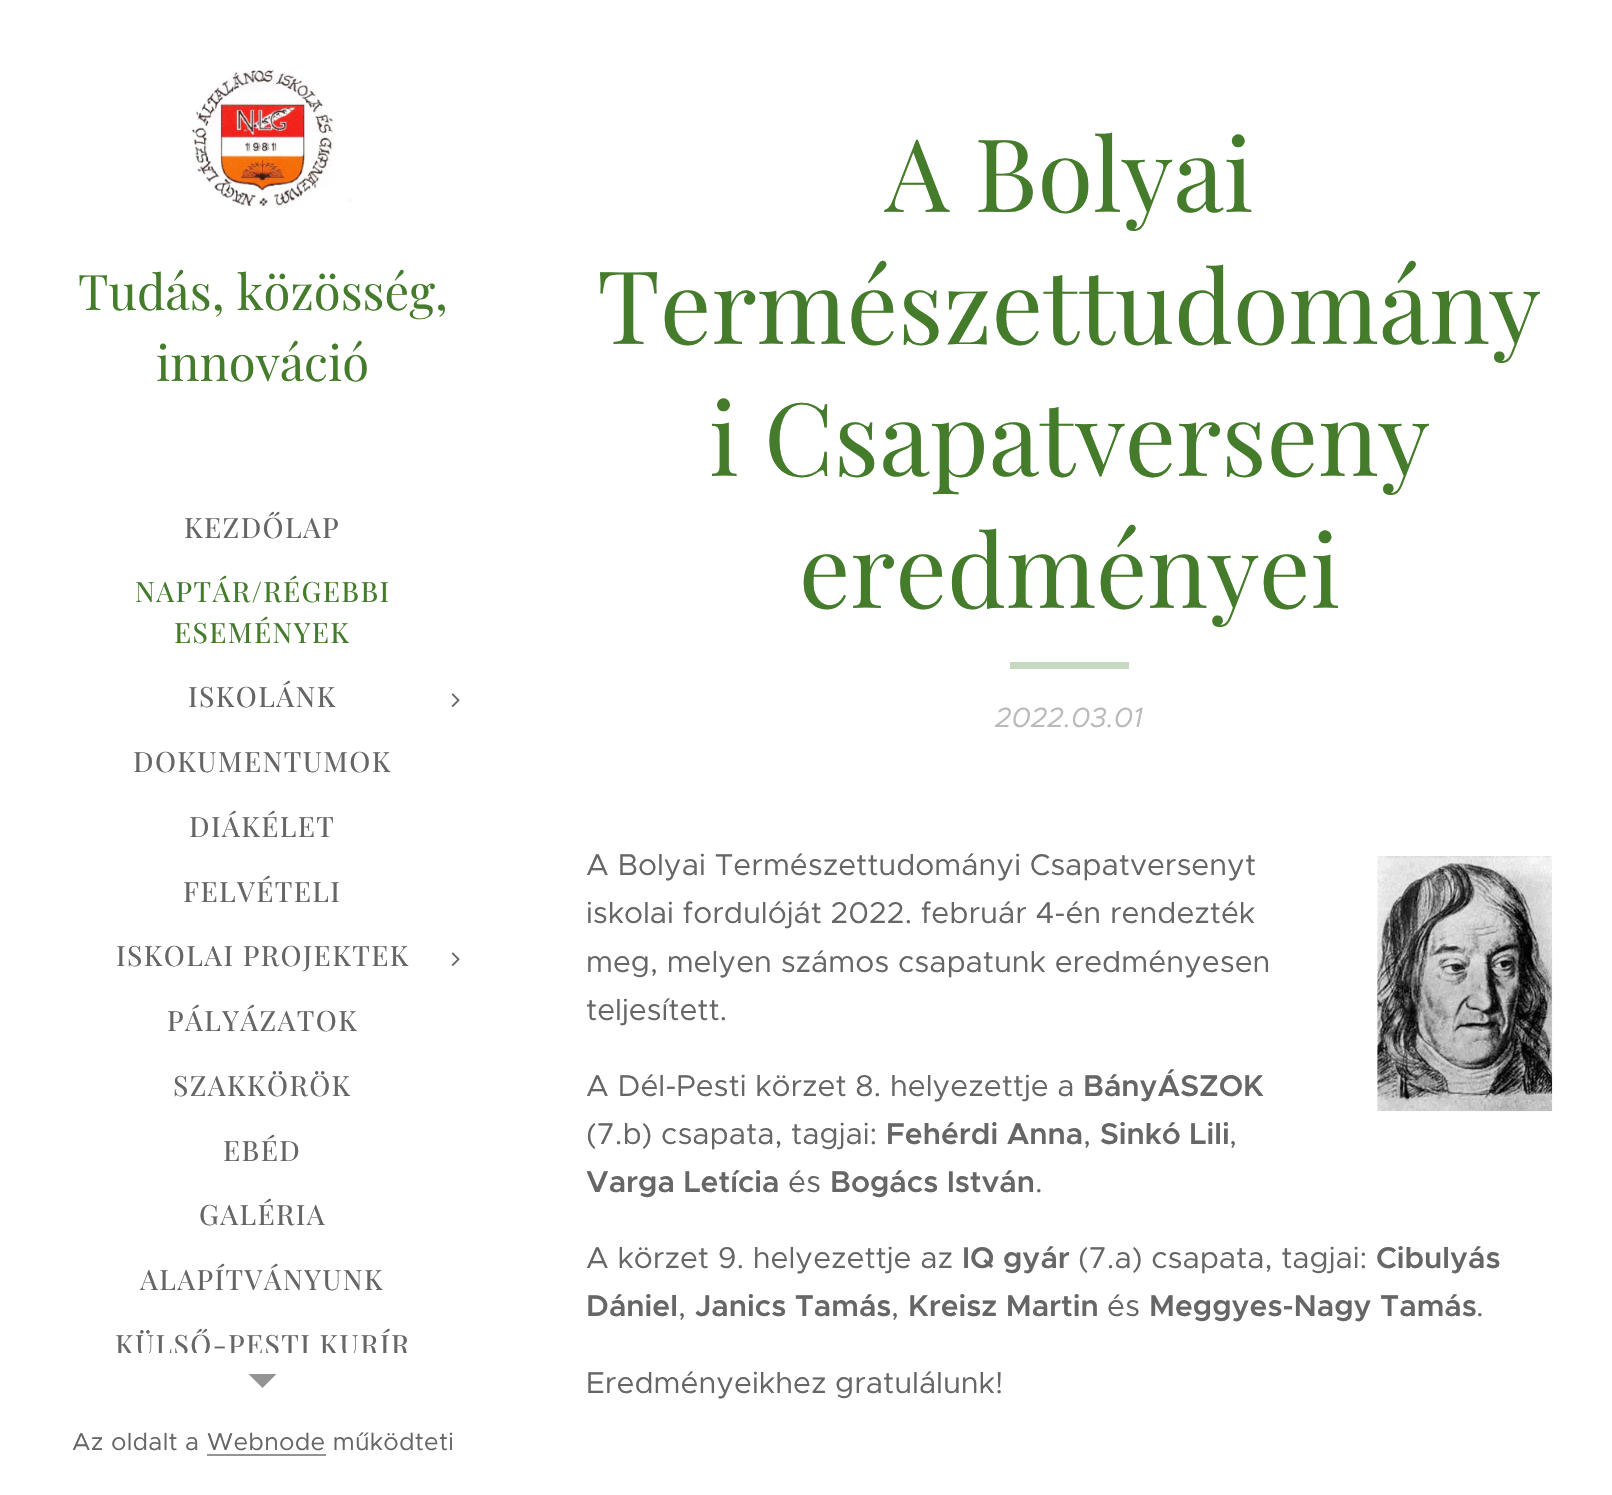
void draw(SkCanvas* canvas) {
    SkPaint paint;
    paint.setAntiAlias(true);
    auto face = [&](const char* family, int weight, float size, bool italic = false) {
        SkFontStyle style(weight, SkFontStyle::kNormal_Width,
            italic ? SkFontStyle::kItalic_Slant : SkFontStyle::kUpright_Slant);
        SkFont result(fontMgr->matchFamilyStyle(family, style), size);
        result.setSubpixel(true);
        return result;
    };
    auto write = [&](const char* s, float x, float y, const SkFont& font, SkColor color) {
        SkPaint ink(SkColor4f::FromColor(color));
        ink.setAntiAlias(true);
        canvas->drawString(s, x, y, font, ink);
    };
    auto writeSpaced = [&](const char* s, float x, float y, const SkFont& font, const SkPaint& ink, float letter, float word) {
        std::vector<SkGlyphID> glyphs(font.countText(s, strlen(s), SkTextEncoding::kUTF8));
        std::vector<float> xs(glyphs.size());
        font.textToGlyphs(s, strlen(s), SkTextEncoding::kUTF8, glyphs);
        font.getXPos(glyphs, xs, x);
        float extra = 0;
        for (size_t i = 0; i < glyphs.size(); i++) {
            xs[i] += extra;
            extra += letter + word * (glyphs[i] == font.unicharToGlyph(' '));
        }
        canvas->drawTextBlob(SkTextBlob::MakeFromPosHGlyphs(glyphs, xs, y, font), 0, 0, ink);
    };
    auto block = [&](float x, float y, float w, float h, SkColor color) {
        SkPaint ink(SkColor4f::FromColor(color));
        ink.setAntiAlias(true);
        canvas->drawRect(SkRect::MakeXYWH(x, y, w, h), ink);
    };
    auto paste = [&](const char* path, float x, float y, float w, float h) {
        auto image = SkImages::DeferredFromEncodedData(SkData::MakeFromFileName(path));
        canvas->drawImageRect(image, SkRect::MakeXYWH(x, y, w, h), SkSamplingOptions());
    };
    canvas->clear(SK_ColorWHITE);
    paste("pic1.png", 191, 69, 162, 148);
    auto kFont1 = face("Playfair Display", 400, 49);
    write("Tudás, közösség,", 78, 310, kFont1, SkColorSetRGB(69, 124, 44));
    write("innováció", 156, 381, kFont1, SkColorSetRGB(69, 124, 44));
    auto kFont2 = face("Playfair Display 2", 400, 28);
    paint.setColor(SkColorSetRGB(102, 102, 102));
    writeSpaced("KEZDŐLAP", 184, 538, kFont2, paint, 1.4f, 0);
    paint.setColor(SkColorSetRGB(69, 124, 44));
    writeSpaced("NAPTÁR/RÉGEBBI", 135, 602, kFont2, paint, 1.4f, 0);
    writeSpaced("ESEMÉNYEK", 174, 643, kFont2, paint, 1.4f, 0);
    paint.setColor(SkColorSetRGB(102, 102, 102));
    writeSpaced("ISKOLÁNK", 188, 707, kFont2, paint, 1.4f, 0);
    paste("pic2.png", 451, 693, 9, 14);
    writeSpaced("DOKUMENTUMOK", 133, 772, kFont2, paint, 1.4f, 0);
    writeSpaced("DIÁKÉLET", 189, 837, kFont2, paint, 1.4f, 0);
    writeSpaced("FELVÉTELI", 183, 902, kFont2, paint, 1.4f, 0);
    writeSpaced("ISKOLAI PROJEKTEK", 116, 966, kFont2, paint, 1.4f, 0);
    paste("pic2.png", 451, 952, 9, 14);
    writeSpaced("PÁLYÁZATOK", 167, 1031, kFont2, paint, 1.4f, 0);
    writeSpaced("SZAKKÖRÖK", 173, 1096, kFont2, paint, 1.4f, 0);
    writeSpaced("EBÉD", 223, 1161, kFont2, paint, 1.4f, 0);
    writeSpaced("GALÉRIA", 199, 1225, kFont2, paint, 1.4f, 0);
    writeSpaced("ALAPÍTVÁNYUNK", 140, 1290, kFont2, paint, 1.4f, 0);
    canvas->save();
    canvas->clipRect(SkRect::MakeXYWH(53, 1323, 420, 30));
    writeSpaced("KÜLSŐ-PESTI KURÍR", 115, 1355, kFont2, paint, 1.4f, 0);
    canvas->restore();
    paint.setColor(SkColorSetRGB(148, 148, 148));
    canvas->drawPath(SkPathBuilder().moveTo(248.5f, 1374).lineTo(276.5f, 1374).lineTo(262.5f, 1388).close().detach(), paint);
    auto kFont3 = face("Playfair Display", 400, 101.5f);
    write("A Bolyai", 885, 212, kFont3, SkColorSetRGB(69, 124, 44));
    write("Természettudomány", 597, 344, kFont3, SkColorSetRGB(69, 124, 44));
    write("i Csapatverseny", 709, 476, kFont3, SkColorSetRGB(69, 124, 44));
    write("eredményei", 799, 608, kFont3, SkColorSetRGB(69, 124, 44));
    block(1010, 662, 119, 7, SkColorSetRGB(199, 216, 192));
    auto kFont4 = face("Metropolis", 400, 28, true);
    write("2022.03.01", 995, 727, kFont4, SkColorSetRGB(186, 186, 186));
    auto kFont5 = face("Metropolis", 400, 30.1f);
    write("A Bolyai Természettudományi Csapatversenyt", 586, 875, kFont5, SkColorSetRGB(102, 102, 102));
    write("iskolai fordulóját 2022. február 4-én rendezték", 586, 923, kFont5, SkColorSetRGB(102, 102, 102));
    write("meg, melyen számos csapatunk eredményesen", 586, 972, kFont5, SkColorSetRGB(102, 102, 102));
    write("teljesített.", 586, 1020, kFont5, SkColorSetRGB(102, 102, 102));
    write("A Dél-Pesti körzet 8. helyezettje a", 586, 1096, kFont5, SkColorSetRGB(102, 102, 102));
    auto kFont6 = face("Metropolis", 600, 30.1f);
    write("BányÁSZOK", 1083, 1096, kFont6, SkColorSetRGB(102, 102, 102));
    write("(7.b) csapata, tagjai:", 586, 1144, kFont5, SkColorSetRGB(102, 102, 102));
    write("Fehérdi Anna", 886, 1144, kFont6, SkColorSetRGB(102, 102, 102));
    write(",", 1083, 1144, kFont5, SkColorSetRGB(102, 102, 102));
    write("Sinkó Lili", 1100, 1144, kFont6, SkColorSetRGB(102, 102, 102));
    write(",", 1229, 1144, kFont5, SkColorSetRGB(102, 102, 102));
    write("Varga Letícia", 586, 1192, kFont6, SkColorSetRGB(102, 102, 102));
    write("és", 788, 1192, kFont5, SkColorSetRGB(102, 102, 102));
    write("Bogács István", 830, 1192, kFont6, SkColorSetRGB(102, 102, 102));
    write(".", 1035, 1192, kFont5, SkColorSetRGB(102, 102, 102));
    write("A körzet 9. helyezettje az", 586, 1268, kFont5, SkColorSetRGB(102, 102, 102));
    write("IQ gyár", 962, 1268, kFont6, SkColorSetRGB(102, 102, 102));
    write("(7.a) csapata, tagjai:", 1078, 1268, kFont5, SkColorSetRGB(102, 102, 102));
    write("Cibulyás", 1376, 1268, kFont6, SkColorSetRGB(102, 102, 102));
    write("Dániel", 586, 1316, kFont6, SkColorSetRGB(102, 102, 102));
    write(",", 678, 1316, kFont5, SkColorSetRGB(102, 102, 102));
    write("Janics Tamás", 695, 1316, kFont6, SkColorSetRGB(102, 102, 102));
    write(",", 891, 1316, kFont5, SkColorSetRGB(102, 102, 102));
    write("Kreisz Martin", 908, 1316, kFont6, SkColorSetRGB(102, 102, 102));
    write("és", 1107, 1316, kFont5, SkColorSetRGB(102, 102, 102));
    write("Meggyes-Nagy Tamás", 1149, 1316, kFont6, SkColorSetRGB(102, 102, 102));
    write(".", 1476, 1316, kFont5, SkColorSetRGB(102, 102, 102));
    write("Eredményeikhez gratulálunk!", 586, 1393, kFont5, SkColorSetRGB(102, 102, 102));
    paste("pic3.png", 1377, 856, 176, 256);
    auto kFont7 = face("Metropolis", 400, 24.5f);
    paint.setColor(SkColorSetRGB(102, 102, 102));
    writeSpaced("Az oldalt a Webnode működteti", 72, 1450, kFont7, paint, 0.25f, 0);
    block(207, 1454, 119, 2, SkColorSetRGB(148, 148, 148));
}
